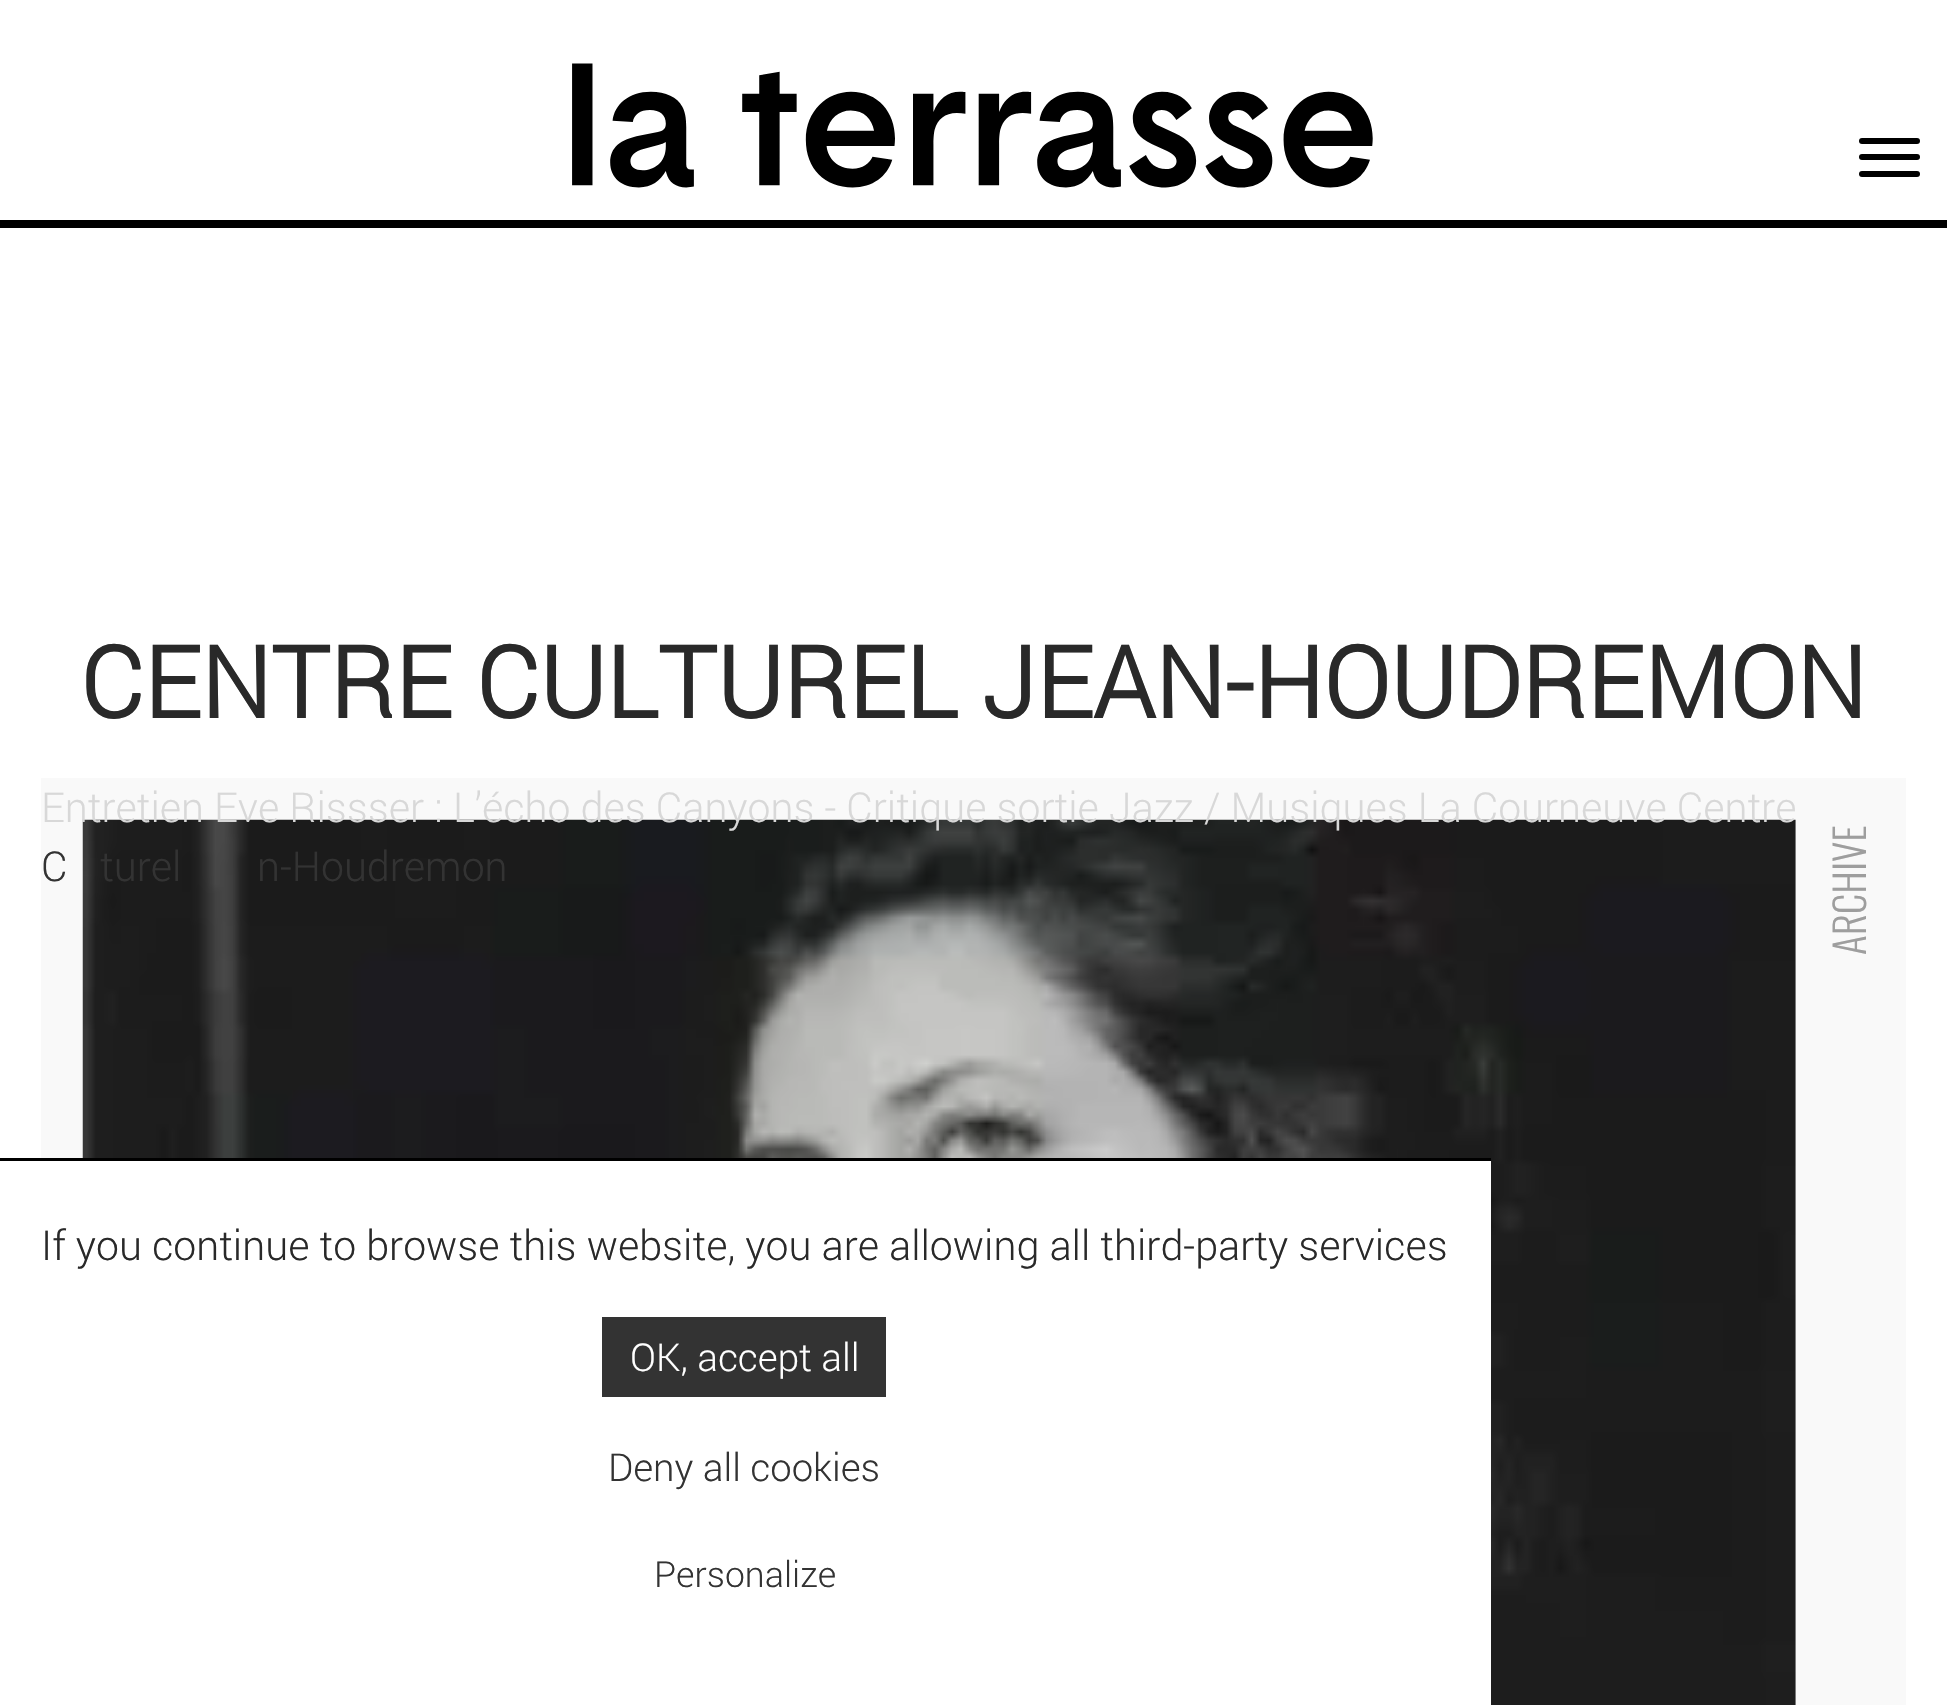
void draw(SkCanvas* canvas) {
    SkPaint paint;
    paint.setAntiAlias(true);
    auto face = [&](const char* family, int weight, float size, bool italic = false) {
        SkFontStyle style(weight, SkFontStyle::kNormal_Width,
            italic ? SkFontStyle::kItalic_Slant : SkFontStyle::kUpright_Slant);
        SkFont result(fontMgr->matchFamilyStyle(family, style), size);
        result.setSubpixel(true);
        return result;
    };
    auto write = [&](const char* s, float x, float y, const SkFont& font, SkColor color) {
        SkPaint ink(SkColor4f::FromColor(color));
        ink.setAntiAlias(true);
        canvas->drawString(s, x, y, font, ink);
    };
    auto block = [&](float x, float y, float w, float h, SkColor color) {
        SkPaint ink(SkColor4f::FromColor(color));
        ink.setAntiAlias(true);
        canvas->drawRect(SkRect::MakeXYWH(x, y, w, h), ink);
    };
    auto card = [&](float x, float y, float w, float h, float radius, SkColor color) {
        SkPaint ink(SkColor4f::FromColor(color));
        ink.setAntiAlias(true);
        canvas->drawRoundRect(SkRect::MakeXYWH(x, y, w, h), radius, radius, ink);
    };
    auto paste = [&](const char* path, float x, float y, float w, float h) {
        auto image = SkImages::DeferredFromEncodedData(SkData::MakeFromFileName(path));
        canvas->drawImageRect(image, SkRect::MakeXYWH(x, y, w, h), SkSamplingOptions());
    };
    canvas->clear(SK_ColorWHITE);
    paste("pic1.png", 572, 63, 801, 125);
    block(0, 220, 1947, 8, SK_ColorBLACK);
    card(1859, 138, 61, 6, 3, SK_ColorBLACK);
    card(1859, 154, 61, 6, 3, SK_ColorBLACK);
    card(1859, 171, 61, 6, 3, SK_ColorBLACK);
    auto kFont1 = face("Roboto", 700, 99);
    write("CENTRE CULTUREL JEAN-HOUDREMON", 80, 718, kFont1, SkColorSetRGB(41, 41, 41));
    block(41, 778, 1865, 927, SkColorSetRGB(249, 249, 249));
    paste("pic2.png", 82, 819, 1714, 886);
    auto kFont2 = face("Roboto", 300, 41.25f);
    write("Entretien Eve Rissser : L’écho des Canyons - Critique sortie Jazz / Musiques La Courneuve Centre", 41, 822, kFont2, SkColorSetRGB(216, 216, 216));
    write("C", 41, 881, kFont2, SkColorSetRGB(51, 51, 51));
    write("turel", 100, 881, kFont2, SkColorSetRGB(51, 51, 51));
    write("n-Houdremon", 257, 881, kFont2, SkColorSetRGB(51, 51, 51));
    auto kFont3 = face("Oswald", 300, 41.25f);
    canvas->save();
    canvas->rotate(-90, 1866, 955);
    write("ARCHIVE", 1866, 955, kFont3, SkColorSetRGB(158, 158, 158));
    canvas->restore();
    block(41, 1161, 1450, 544, SK_ColorWHITE);
    block(0, 1158, 1491, 3, SK_ColorBLACK);
    write("If you continue to browse this website, you are allowing all third-party services", 41, 1260, kFont2, SkColorSetRGB(41, 41, 41));
    block(602, 1317, 284, 80, SkColorSetRGB(51, 51, 51));
    auto kFont4 = face("Roboto", 300, 38.5f);
    write("OK, accept all", 630, 1371, kFont4, SK_ColorWHITE);
    write("Deny all cookies", 608, 1481, kFont4, SkColorSetRGB(51, 51, 51));
    auto kFont5 = face("Roboto", 300, 35.75f);
    write("Personalize", 654, 1587, kFont5, SkColorSetRGB(51, 51, 51));
}
